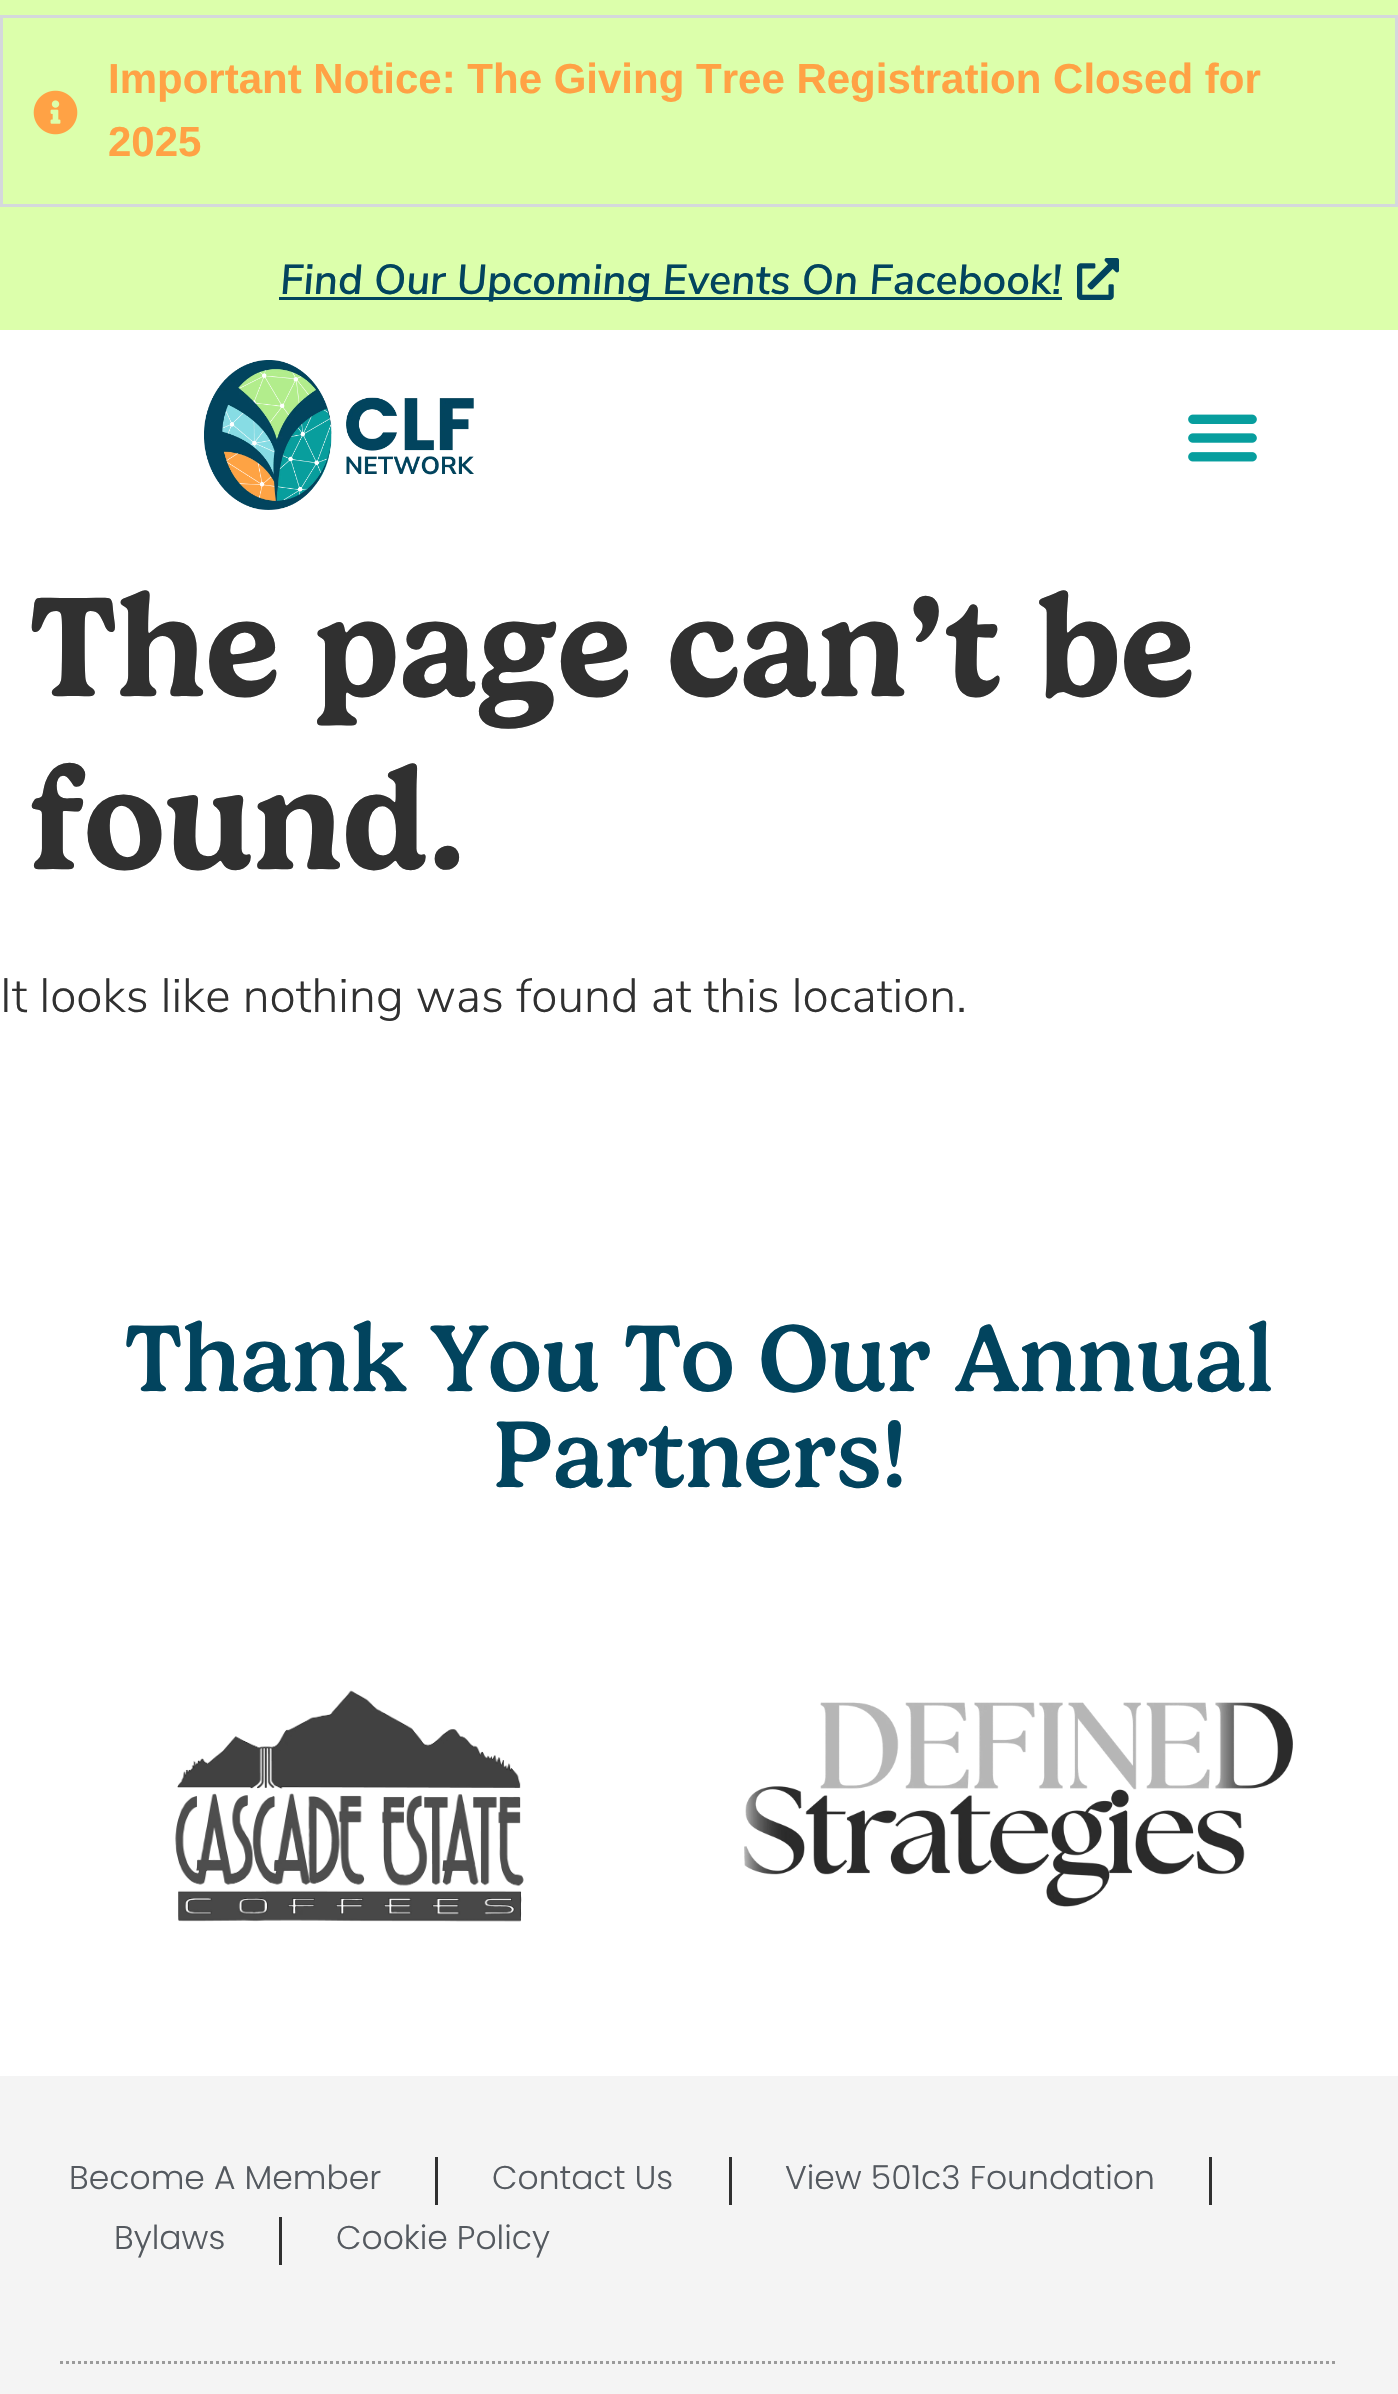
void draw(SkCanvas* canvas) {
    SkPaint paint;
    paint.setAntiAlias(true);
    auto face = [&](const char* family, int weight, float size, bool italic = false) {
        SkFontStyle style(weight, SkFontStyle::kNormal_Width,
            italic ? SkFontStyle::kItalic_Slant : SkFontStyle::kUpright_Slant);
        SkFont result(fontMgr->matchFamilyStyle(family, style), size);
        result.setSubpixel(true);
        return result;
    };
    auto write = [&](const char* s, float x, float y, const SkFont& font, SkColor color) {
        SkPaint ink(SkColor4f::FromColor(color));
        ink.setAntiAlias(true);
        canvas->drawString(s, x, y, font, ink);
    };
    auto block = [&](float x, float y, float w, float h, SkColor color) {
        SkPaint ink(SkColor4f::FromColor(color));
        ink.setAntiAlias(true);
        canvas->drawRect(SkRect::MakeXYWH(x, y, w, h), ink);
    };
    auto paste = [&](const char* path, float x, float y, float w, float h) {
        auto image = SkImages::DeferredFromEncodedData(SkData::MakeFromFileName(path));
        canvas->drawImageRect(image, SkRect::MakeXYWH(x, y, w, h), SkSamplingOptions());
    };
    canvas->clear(SK_ColorWHITE);
    block(0, 0, 1398, 330, SkColorSetRGB(220, 255, 171));
    paint.setStyle(SkPaint::kStroke_Style);
    paint.setStrokeWidth(3);
    paint.setColor(SkColorSetRGB(213, 216, 220));
    canvas->drawRect(SkRect::MakeXYWH(1.5f, 16.5f, 1395, 189), paint);
    paste("pic1.png", 33, 90, 45, 45);
    auto kFont1 = face("Liberation Sans", 700, 42);
    write("Important Notice: The Giving Tree Registration Closed for", 108, 93, kFont1, SkColorSetRGB(255, 162, 69));
    write("2025", 108, 156, kFont1, SkColorSetRGB(255, 162, 69));
    block(279, 297, 783, 3, SkColorSetRGB(2, 68, 94));
    auto kFont2 = face("Nunito Sans", 600, 42, true);
    write("Find Our Upcoming Events On Facebook!", 280, 294, kFont2, SkColorSetRGB(2, 68, 94));
    paste("pic2.png", 1077, 258, 42, 42);
    paste("pic3.png", 204, 360, 270, 150);
    paste("pic4.png", 1188, 414, 69, 48);
    auto kFont3 = face("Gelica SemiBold", 600, 144);
    write("The page can’t be", 30, 696, kFont3, SkColorSetRGB(48, 48, 48));
    write("found.", 30, 869, kFont3, SkColorSetRGB(48, 48, 48));
    auto kFont4 = face("Nunito Sans", 300, 48);
    write("It looks like nothing was found at this location.", 0, 1012, kFont4, SkColorSetRGB(48, 48, 48));
    auto kFont5 = face("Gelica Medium", 500, 96);
    write("Thank You To Our Annual", 125, 1391, kFont5, SkColorSetRGB(2, 68, 94));
    write("Partners!", 492, 1487, kFont5, SkColorSetRGB(2, 68, 94));
    paste("pic5.png", 175, 1690, 349, 232);
    paste("pic6.png", 744, 1702, 549, 205);
    block(0, 2076, 1398, 318, SkColorSetRGB(244, 244, 244));
    paint.setColor(SkColorSetRGB(155, 155, 155));
    paint.setPathEffect(SkDashPathEffect::Make({{3, 3}}, 0));
    canvas->drawPath(SkPathBuilder().moveTo(60, 2362.5f).lineTo(1338, 2362.5f).detach(), paint);
    paint.setPathEffect(nullptr);
    auto kFont6 = face("Poppins", 300, 33);
    write("Become A Member", 69, 2189, kFont6, SkColorSetRGB(84, 89, 95));
    block(435, 2157, 3, 48, SkColorSetRGB(48, 48, 48));
    write("Contact Us", 492, 2189, kFont6, SkColorSetRGB(84, 89, 95));
    block(729, 2157, 3, 48, SkColorSetRGB(48, 48, 48));
    write("View 501c3 Foundation", 785, 2189, kFont6, SkColorSetRGB(84, 89, 95));
    block(1209, 2157, 3, 48, SkColorSetRGB(48, 48, 48));
    write("Bylaws", 114, 2249, kFont6, SkColorSetRGB(84, 89, 95));
    block(279, 2217, 3, 48, SkColorSetRGB(48, 48, 48));
    write("Cookie Policy", 336, 2249, kFont6, SkColorSetRGB(84, 89, 95));
}
